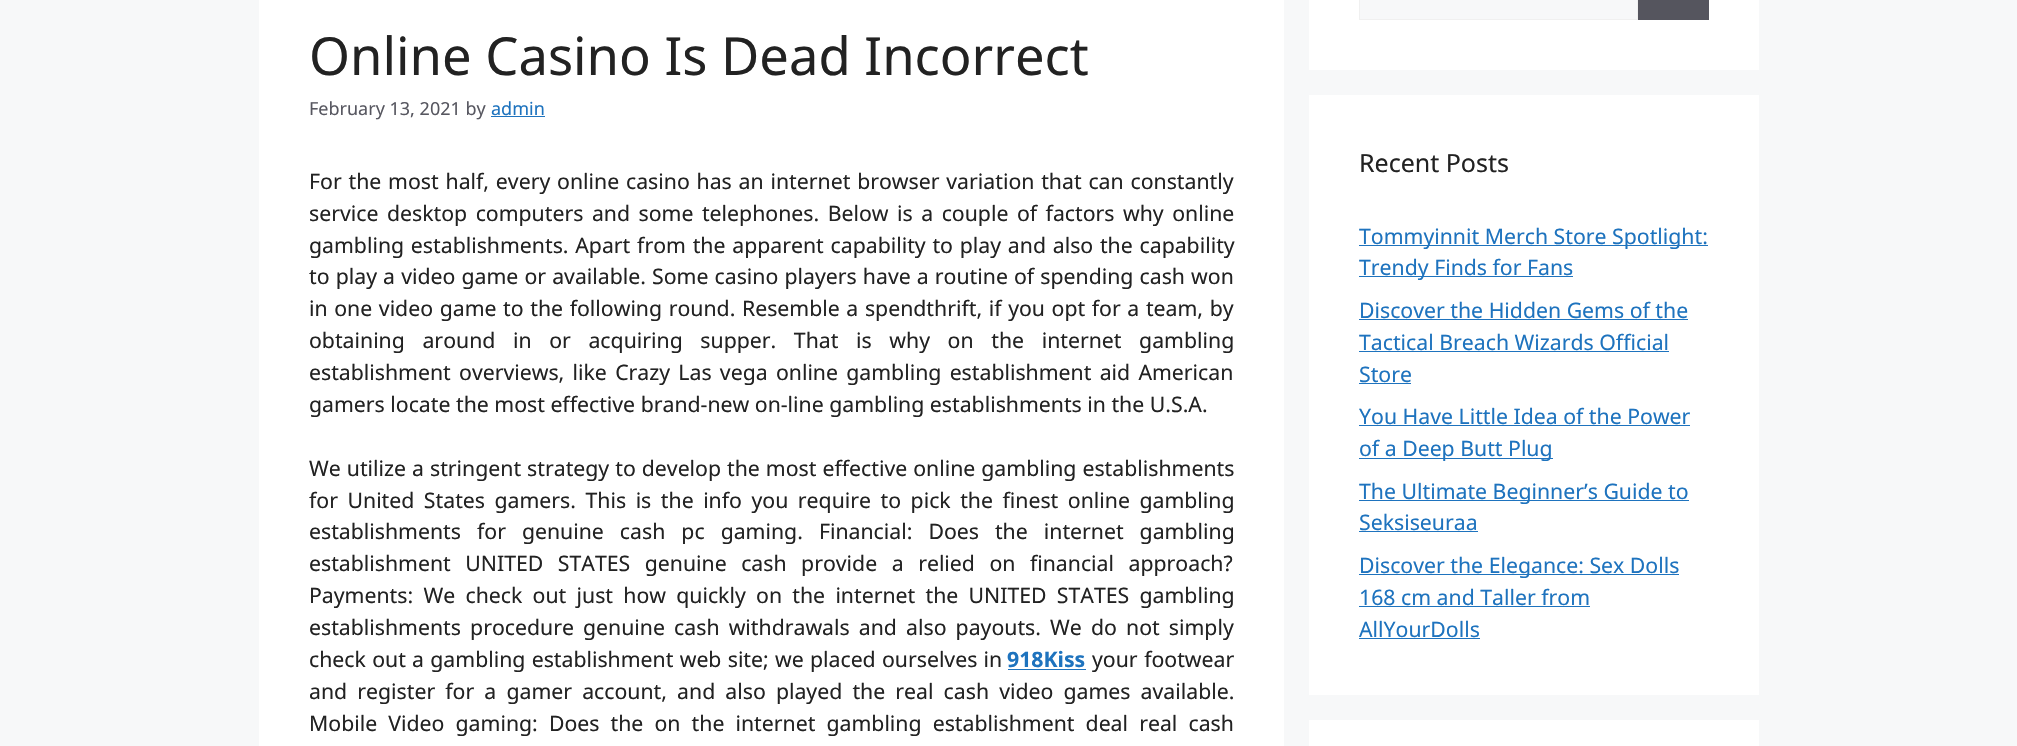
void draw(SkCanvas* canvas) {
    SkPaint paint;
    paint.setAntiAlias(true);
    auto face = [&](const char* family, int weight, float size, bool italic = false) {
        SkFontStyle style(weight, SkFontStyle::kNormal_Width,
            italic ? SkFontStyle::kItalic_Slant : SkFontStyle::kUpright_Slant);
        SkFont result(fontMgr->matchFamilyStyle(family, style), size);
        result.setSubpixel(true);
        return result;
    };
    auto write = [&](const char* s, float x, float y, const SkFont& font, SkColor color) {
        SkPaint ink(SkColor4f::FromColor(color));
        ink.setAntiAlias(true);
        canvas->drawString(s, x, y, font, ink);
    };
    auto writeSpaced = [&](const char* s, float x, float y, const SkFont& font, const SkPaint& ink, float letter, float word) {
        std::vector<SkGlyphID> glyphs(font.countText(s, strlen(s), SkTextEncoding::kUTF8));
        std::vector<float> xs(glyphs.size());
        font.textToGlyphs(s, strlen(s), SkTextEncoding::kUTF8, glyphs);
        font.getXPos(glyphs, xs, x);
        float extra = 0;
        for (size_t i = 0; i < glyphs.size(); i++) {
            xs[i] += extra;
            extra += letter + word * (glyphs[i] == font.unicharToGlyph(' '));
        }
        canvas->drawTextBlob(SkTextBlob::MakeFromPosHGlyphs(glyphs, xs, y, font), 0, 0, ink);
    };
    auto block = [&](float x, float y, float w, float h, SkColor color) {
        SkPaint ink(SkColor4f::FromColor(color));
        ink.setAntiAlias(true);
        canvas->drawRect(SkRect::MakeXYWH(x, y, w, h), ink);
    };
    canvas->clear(SkColorSetRGB(247, 248, 249));
    block(259, 0, 1025, 746, SK_ColorWHITE);
    auto kFont1 = face("Noto Sans", 400, 52.5f);
    write("Online Casino Is Dead Incorrect", 309, 75, kFont1, SkColorSetRGB(34, 34, 34));
    auto kFont2 = face("Noto Sans", 400, 18);
    write("February 13, 2021 by", 309, 115, kFont2, SkColorSetRGB(87, 87, 96));
    write("admin", 491, 115, kFont2, SkColorSetRGB(30, 115, 190));
    block(491, 116, 54, 1, SkColorSetRGB(30, 115, 190));
    auto kFont3 = face("Noto Sans", 400, 21.25f);
    paint.setColor(SkColorSetRGB(34, 34, 34));
    writeSpaced("For the most half, every online casino has an internet browser variation that can constantly", 309, 189, kFont3, paint, 0, 1.3f);
    writeSpaced("service desktop computers and some telephones. Below is a couple of factors why online", 309, 221, kFont3, paint, 0, 3);
    writeSpaced("gambling establishments. Apart from the apparent capability to play and also the capability", 309, 253, kFont3, paint, 0, 1.25f);
    writeSpaced("to play a video game or available. Some casino players have a routine of spending cash won", 309, 284, kFont3, paint, 0, 0.6f);
    writeSpaced("in one video game to the following round. Resemble a spendthrift, if you opt for a team, by", 309, 316, kFont3, paint, 0, 1.1f);
    writeSpaced("obtaining around in or acquiring supper. That is why on the internet gambling", 309, 348, kFont3, paint, 0, 12.1f);
    writeSpaced("establishment overviews, like Crazy Las vega online gambling establishment aid American", 309, 380, kFont3, paint, 0, 2.75f);
    write("gamers locate the most effective brand-new on-line gambling establishments in the U.S.A.", 309, 412, kFont3, SkColorSetRGB(34, 34, 34));
    writeSpaced("We utilize a stringent strategy to develop the most effective online gambling establishments", 309, 476, kFont3, paint, 0, 0.5f);
    writeSpaced("for United States gamers. This is the info you require to pick the finest online gambling", 309, 508, kFont3, paint, 0, 4);
    writeSpaced("establishments for genuine cash pc gaming. Financial: Does the internet gambling", 309, 539, kFont3, paint, 0, 10.5f);
    writeSpaced("establishment UNITED STATES genuine cash provide a relied on financial approach?", 309, 571, kFont3, paint, 0, 9);
    writeSpaced("Payments: We check out just how quickly on the internet the UNITED STATES gambling", 309, 603, kFont3, paint, 0, 4.75f);
    writeSpaced("establishments procedure genuine cash withdrawals and also payouts. We do not simply", 309, 635, kFont3, paint, 0, 3.6f);
    writeSpaced("check out a gambling establishment web site; we placed ourselves in", 309, 667, kFont3, paint, 0, 0.75f);
    auto kFont4 = face("Noto Sans", 700, 21.25f);
    write("918Kiss", 1007, 667, kFont4, SkColorSetRGB(30, 115, 190));
    block(1008, 669, 78, 1, SkColorSetRGB(30, 115, 190));
    writeSpaced("your footwear", 1092, 667, kFont3, paint, 0, 1);
    writeSpaced("and register for a gamer account, and also played the real cash video games available.", 309, 699, kFont3, paint, 0, 4.6f);
    writeSpaced("Mobile Video gaming: Does the on the internet gambling establishment deal real cash", 309, 731, kFont3, paint, 0, 5.6f);
    block(1309, 0, 450, 70, SK_ColorWHITE);
    paint.setColor(SkColorSetRGB(247, 248, 249));
    canvas->drawRect(SkRect::MakeXYWH(1359.5f, -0.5f, 278, 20), paint);
    paint.setStyle(SkPaint::kStroke_Style);
    paint.setStrokeWidth(1);
    paint.setColor(SkColorSetRGB(240, 240, 240));
    canvas->drawRect(SkRect::MakeXYWH(1359.5f, -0.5f, 278, 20), paint);
    block(1638, 0, 71, 20, SkColorSetRGB(85, 85, 94));
    block(1309, 95, 450, 600, SK_ColorWHITE);
    auto kFont5 = face("Noto Sans", 400, 25);
    write("Recent Posts", 1359, 172, kFont5, SkColorSetRGB(34, 34, 34));
    block(1359, 245, 349, 1, SkColorSetRGB(30, 115, 190));
    write("Tommyinnit Merch Store Spotlight:", 1359, 244, kFont3, SkColorSetRGB(30, 115, 190));
    block(1359, 276, 214, 1, SkColorSetRGB(30, 115, 190));
    write("Trendy Finds for Fans", 1359, 275, kFont3, SkColorSetRGB(30, 115, 190));
    write("Discover the Hidden Gems of the", 1359, 318, kFont3, SkColorSetRGB(30, 115, 190));
    block(1359, 319, 329, 1, SkColorSetRGB(30, 115, 190));
    write("Tactical Breach Wizards Official", 1359, 350, kFont3, SkColorSetRGB(30, 115, 190));
    block(1359, 351, 310, 1, SkColorSetRGB(30, 115, 190));
    write("Store", 1359, 382, kFont3, SkColorSetRGB(30, 115, 190));
    block(1359, 383, 52, 1, SkColorSetRGB(30, 115, 190));
    write("You Have Little Idea of the Power", 1359, 424, kFont3, SkColorSetRGB(30, 115, 190));
    block(1359, 425, 331, 1, SkColorSetRGB(30, 115, 190));
    block(1359, 458, 194, 1, SkColorSetRGB(30, 115, 190));
    write("of a Deep Butt Plug", 1359, 456, kFont3, SkColorSetRGB(30, 115, 190));
    block(1359, 500, 330, 1, SkColorSetRGB(30, 115, 190));
    write("The Ultimate Beginner’s Guide to", 1359, 499, kFont3, SkColorSetRGB(30, 115, 190));
    write("Seksiseuraa", 1359, 530, kFont3, SkColorSetRGB(30, 115, 190));
    block(1359, 531, 119, 1, SkColorSetRGB(30, 115, 190));
    block(1359, 574, 320, 1, SkColorSetRGB(30, 115, 190));
    write("Discover the Elegance: Sex Dolls", 1359, 573, kFont3, SkColorSetRGB(30, 115, 190));
    write("168 cm and Taller from", 1359, 605, kFont3, SkColorSetRGB(30, 115, 190));
    block(1359, 606, 231, 1, SkColorSetRGB(30, 115, 190));
    write("AllYourDolls", 1359, 637, kFont3, SkColorSetRGB(30, 115, 190));
    block(1359, 638, 121, 1, SkColorSetRGB(30, 115, 190));
    block(1309, 720, 450, 26, SK_ColorWHITE);
}
